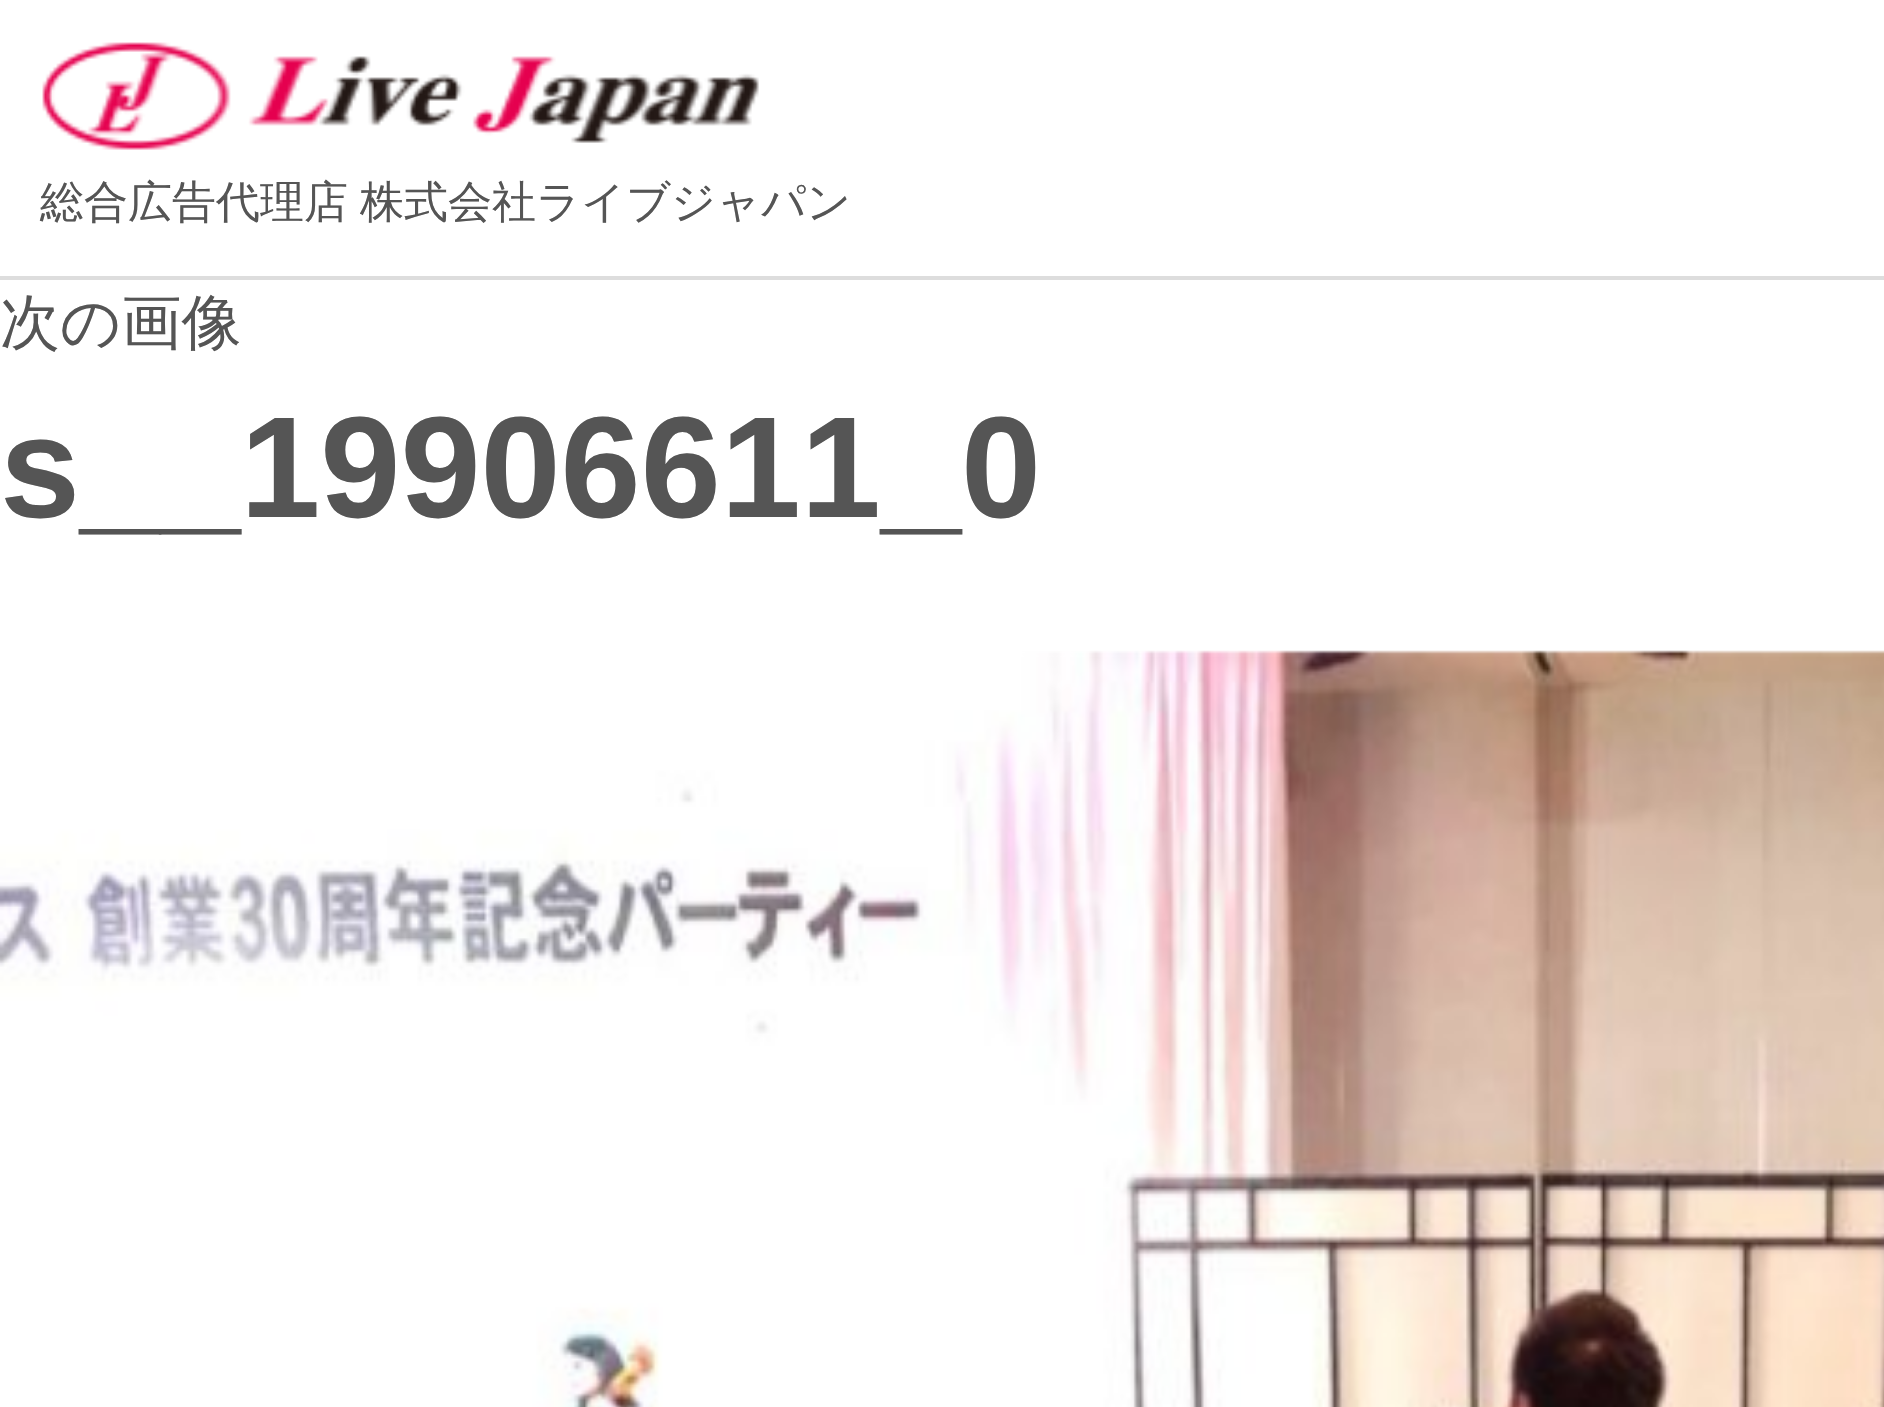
void draw(SkCanvas* canvas) {
    SkPaint paint;
    paint.setAntiAlias(true);
    auto face = [&](const char* family, int weight, float size, bool italic = false) {
        SkFontStyle style(weight, SkFontStyle::kNormal_Width,
            italic ? SkFontStyle::kItalic_Slant : SkFontStyle::kUpright_Slant);
        SkFont result(fontMgr->matchFamilyStyle(family, style), size);
        result.setSubpixel(true);
        return result;
    };
    auto write = [&](const char* s, float x, float y, const SkFont& font, SkColor color) {
        SkPaint ink(SkColor4f::FromColor(color));
        ink.setAntiAlias(true);
        canvas->drawString(s, x, y, font, ink);
    };
    auto block = [&](float x, float y, float w, float h, SkColor color) {
        SkPaint ink(SkColor4f::FromColor(color));
        ink.setAntiAlias(true);
        canvas->drawRect(SkRect::MakeXYWH(x, y, w, h), ink);
    };
    auto paste = [&](const char* path, float x, float y, float w, float h) {
        auto image = SkImages::DeferredFromEncodedData(SkData::MakeFromFileName(path));
        canvas->drawImageRect(image, SkRect::MakeXYWH(x, y, w, h), SkSamplingOptions());
    };
    canvas->clear(SK_ColorWHITE);
    block(0, 276, 1884, 4, SkColorSetRGB(221, 221, 221));
    paste("pic1.png", 42, 42, 717, 108);
    auto kFont1 = face("WenQuanYi Zen Hei", 500, 44);
    write("総合広告代理店", 40, 217, kFont1, SkColorSetRGB(85, 85, 85));
    write("株式会社ライブジャパン", 360, 217, kFont1, SkColorSetRGB(85, 85, 85));
    auto kFont2 = face("WenQuanYi Zen Hei", 500, 60);
    write("次の画像", 0, 343, kFont2, SkColorSetRGB(85, 85, 85));
    auto kFont3 = face("Liberation Sans", 700, 144);
    write("s__19906611_0", 0, 517, kFont3, SkColorSetRGB(85, 85, 85));
    paste("pic2.png", 0, 650, 1884, 757);
}
